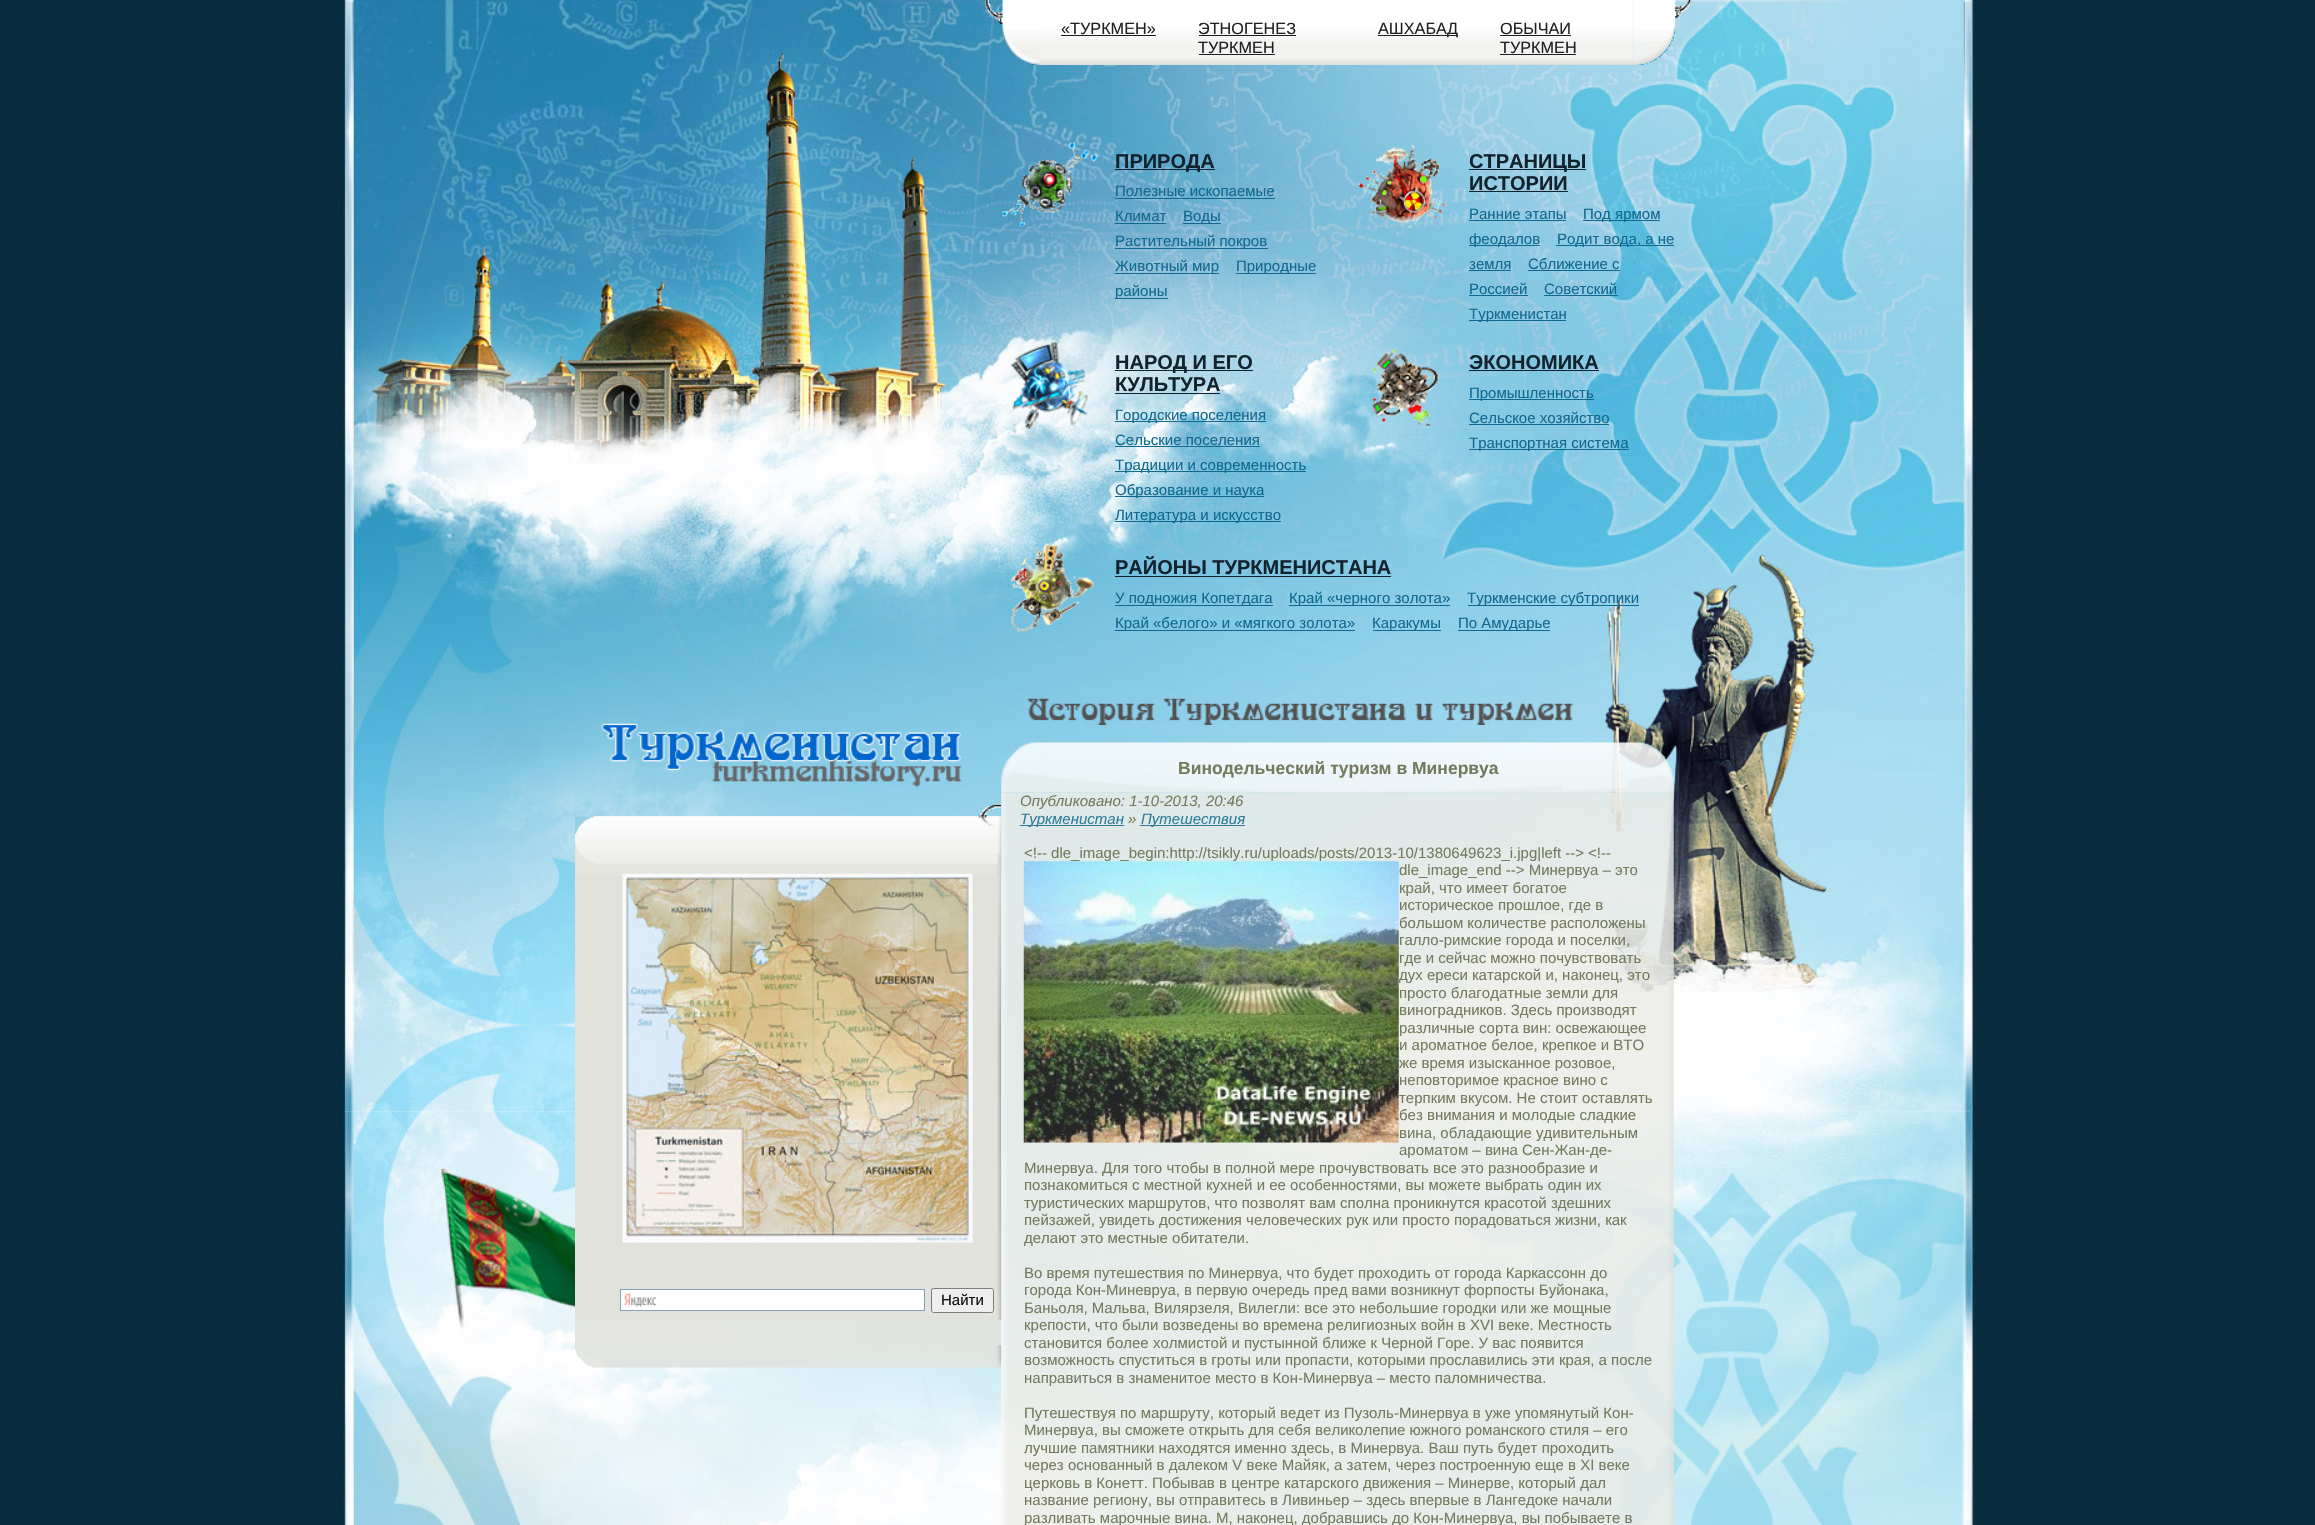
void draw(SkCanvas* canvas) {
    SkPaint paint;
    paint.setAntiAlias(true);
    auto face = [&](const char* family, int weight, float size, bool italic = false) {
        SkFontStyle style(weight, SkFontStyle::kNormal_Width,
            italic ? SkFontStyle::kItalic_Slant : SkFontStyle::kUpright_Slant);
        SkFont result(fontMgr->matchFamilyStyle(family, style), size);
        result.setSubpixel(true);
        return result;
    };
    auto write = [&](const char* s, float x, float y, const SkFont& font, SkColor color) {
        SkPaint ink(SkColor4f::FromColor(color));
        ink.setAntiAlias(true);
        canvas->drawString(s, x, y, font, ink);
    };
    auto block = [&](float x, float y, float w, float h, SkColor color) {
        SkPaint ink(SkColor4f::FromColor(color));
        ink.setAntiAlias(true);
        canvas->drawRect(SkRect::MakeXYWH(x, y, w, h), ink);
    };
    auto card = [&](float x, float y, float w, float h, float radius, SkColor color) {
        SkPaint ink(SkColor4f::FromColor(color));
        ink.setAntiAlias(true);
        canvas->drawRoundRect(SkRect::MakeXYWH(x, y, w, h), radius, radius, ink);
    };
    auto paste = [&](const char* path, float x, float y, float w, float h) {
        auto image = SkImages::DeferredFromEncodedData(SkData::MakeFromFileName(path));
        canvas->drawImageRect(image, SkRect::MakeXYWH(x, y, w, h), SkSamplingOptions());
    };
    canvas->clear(SkColorSetRGB(9, 44, 62));
    paste("pic1.png", 340, 1111, 1635, 1);
    paste("pic2.png", 340, 475, 1635, 637);
    paste("pic3.png", 340, 1111, 1635, 414);
    paste("pic4.png", 340, 0, 1635, 475);
    paste("pic5.png", 984, 0, 56, 65);
    paste("pic6.png", 1040, 0, 594, 65);
    auto kFont1 = face("Liberation Sans", 400, 16.25f);
    write("«ТУРКМЕН»", 1061, 34, kFont1, SkColorSetRGB(32, 32, 32));
    block(1061, 35, 95, 1, SkColorSetRGB(32, 32, 32));
    write("ЭТНОГЕНЕЗ", 1198, 34, kFont1, SkColorSetRGB(32, 32, 32));
    block(1199, 35, 97, 1, SkColorSetRGB(32, 32, 32));
    write("ТУРКМЕН", 1198, 53, kFont1, SkColorSetRGB(32, 32, 32));
    block(1199, 54, 76, 1, SkColorSetRGB(32, 32, 32));
    block(1378, 35, 80, 1, SkColorSetRGB(32, 32, 32));
    write("АШХАБАД", 1378, 34, kFont1, SkColorSetRGB(32, 32, 32));
    write("ОБЫЧАИ", 1500, 34, kFont1, SkColorSetRGB(32, 32, 32));
    block(1500, 35, 71, 1, SkColorSetRGB(32, 32, 32));
    write("ТУРКМЕН", 1500, 53, kFont1, SkColorSetRGB(32, 32, 32));
    block(1500, 54, 76, 1, SkColorSetRGB(32, 32, 32));
    paste("pic7.png", 1633, 0, 59, 65);
    paste("pic8.png", 1002, 142, 96, 85);
    block(1115, 169, 100, 1, SkColorSetRGB(19, 35, 45));
    auto kFont2 = face("Liberation Sans", 700, 20);
    write("ПРИРОДА", 1115, 168, kFont2, SkColorSetRGB(19, 35, 45));
    auto kFont3 = face("Liberation Sans", 400, 15);
    write("Полезные ископаемые", 1115, 196, kFont3, SkColorSetRGB(17, 105, 144));
    block(1115, 198, 160, 1, SkColorSetRGB(17, 105, 144));
    write("Климат", 1115, 221, kFont3, SkColorSetRGB(17, 105, 144));
    block(1115, 223, 51, 1, SkColorSetRGB(17, 105, 144));
    block(1183, 223, 38, 1, SkColorSetRGB(17, 105, 144));
    write("Воды", 1183, 221, kFont3, SkColorSetRGB(17, 105, 144));
    block(1115, 248, 153, 1, SkColorSetRGB(17, 105, 144));
    write("Растительный покров", 1115, 246, kFont3, SkColorSetRGB(17, 105, 144));
    block(1115, 273, 104, 1, SkColorSetRGB(17, 105, 144));
    write("Животный мир", 1115, 271, kFont3, SkColorSetRGB(17, 105, 144));
    block(1236, 273, 80, 1, SkColorSetRGB(17, 105, 144));
    write("Природные", 1236, 271, kFont3, SkColorSetRGB(17, 105, 144));
    block(1115, 298, 53, 1, SkColorSetRGB(17, 105, 144));
    write("районы", 1115, 296, kFont3, SkColorSetRGB(17, 105, 144));
    paste("pic9.png", 1358, 145, 89, 83);
    block(1469, 169, 117, 1, SkColorSetRGB(19, 35, 45));
    write("СТРАНИЦЫ", 1469, 168, kFont2, SkColorSetRGB(19, 35, 45));
    write("ИСТОРИИ", 1469, 190, kFont2, SkColorSetRGB(19, 35, 45));
    block(1469, 191, 99, 1, SkColorSetRGB(19, 35, 45));
    write("Ранние этапы", 1469, 219, kFont3, SkColorSetRGB(17, 105, 144));
    block(1469, 220, 97, 1, SkColorSetRGB(17, 105, 144));
    block(1583, 220, 77, 1, SkColorSetRGB(17, 105, 144));
    write("Под ярмом", 1583, 219, kFont3, SkColorSetRGB(17, 105, 144));
    block(1469, 245, 71, 1, SkColorSetRGB(17, 105, 144));
    write("феодалов", 1469, 244, kFont3, SkColorSetRGB(17, 105, 144));
    block(1556, 245, 118, 1, SkColorSetRGB(17, 105, 144));
    write("Родит вода, а не", 1557, 244, kFont3, SkColorSetRGB(17, 105, 144));
    write("земля", 1469, 269, kFont3, SkColorSetRGB(17, 105, 144));
    block(1469, 270, 42, 1, SkColorSetRGB(17, 105, 144));
    write("Сближение с", 1528, 269, kFont3, SkColorSetRGB(17, 105, 144));
    block(1528, 270, 92, 1, SkColorSetRGB(17, 105, 144));
    write("Россией", 1469, 294, kFont3, SkColorSetRGB(17, 105, 144));
    block(1469, 295, 59, 1, SkColorSetRGB(17, 105, 144));
    write("Советский", 1544, 294, kFont3, SkColorSetRGB(17, 105, 144));
    block(1544, 295, 74, 1, SkColorSetRGB(17, 105, 144));
    block(1469, 320, 97, 1, SkColorSetRGB(17, 105, 144));
    write("Туркменистан", 1469, 319, kFont3, SkColorSetRGB(17, 105, 144));
    paste("pic10.png", 1011, 342, 77, 87);
    block(1115, 370, 138, 1, SkColorSetRGB(19, 35, 45));
    write("НАРОД И ЕГО", 1115, 369, kFont2, SkColorSetRGB(19, 35, 45));
    write("КУЛЬТУРА", 1115, 391, kFont2, SkColorSetRGB(19, 35, 45));
    block(1115, 393, 105, 1, SkColorSetRGB(19, 35, 45));
    block(1115, 421, 151, 1, SkColorSetRGB(17, 105, 144));
    write("Городские поселения", 1115, 420, kFont3, SkColorSetRGB(17, 105, 144));
    write("Сельские поселения", 1115, 445, kFont3, SkColorSetRGB(17, 105, 144));
    block(1115, 446, 145, 1, SkColorSetRGB(17, 105, 144));
    block(1115, 471, 191, 1, SkColorSetRGB(17, 105, 144));
    write("Традиции и современность", 1115, 470, kFont3, SkColorSetRGB(17, 105, 144));
    block(1115, 496, 149, 1, SkColorSetRGB(17, 105, 144));
    write("Образование и наука", 1115, 495, kFont3, SkColorSetRGB(17, 105, 144));
    block(1115, 521, 166, 1, SkColorSetRGB(17, 105, 144));
    write("Литература и искусство", 1115, 520, kFont3, SkColorSetRGB(17, 105, 144));
    paste("pic11.png", 1371, 348, 68, 80);
    write("ЭКОНОМИКА", 1469, 369, kFont2, SkColorSetRGB(19, 35, 45));
    block(1469, 370, 130, 1, SkColorSetRGB(19, 35, 45));
    block(1469, 399, 125, 1, SkColorSetRGB(17, 105, 144));
    write("Промышленность", 1469, 398, kFont3, SkColorSetRGB(17, 105, 144));
    write("Сельское хозяйство", 1469, 423, kFont3, SkColorSetRGB(17, 105, 144));
    block(1469, 424, 140, 1, SkColorSetRGB(17, 105, 144));
    block(1469, 449, 160, 1, SkColorSetRGB(17, 105, 144));
    write("Транспортная система", 1469, 448, kFont3, SkColorSetRGB(17, 105, 144));
    paste("pic12.png", 1011, 543, 83, 89);
    write("РАЙОНЫ ТУРКМЕНИСТАНА", 1115, 574, kFont2, SkColorSetRGB(19, 35, 45));
    block(1115, 576, 276, 1, SkColorSetRGB(19, 35, 45));
    block(1115, 605, 158, 1, SkColorSetRGB(17, 105, 144));
    write("У подножия Копетдага", 1115, 603, kFont3, SkColorSetRGB(17, 105, 144));
    block(1289, 605, 161, 1, SkColorSetRGB(17, 105, 144));
    write("Край «черного золота»", 1289, 603, kFont3, SkColorSetRGB(17, 105, 144));
    block(1468, 605, 171, 1, SkColorSetRGB(17, 105, 144));
    write("Туркменские субтропики", 1467, 603, kFont3, SkColorSetRGB(17, 105, 144));
    block(1115, 630, 240, 1, SkColorSetRGB(17, 105, 144));
    write("Край «белого» и «мягкого золота»", 1115, 628, kFont3, SkColorSetRGB(17, 105, 144));
    block(1373, 630, 68, 1, SkColorSetRGB(17, 105, 144));
    write("Каракумы", 1372, 628, kFont3, SkColorSetRGB(17, 105, 144));
    block(1458, 630, 92, 1, SkColorSetRGB(17, 105, 144));
    write("По Амударье", 1458, 628, kFont3, SkColorSetRGB(17, 105, 144));
    paste("pic13.png", 601, 723, 361, 64);
    paste("pic14.png", 978, 803, 24, 14);
    block(575, 816, 426, 529, SkColorSetARGB(242, 226, 227, 221));
    paste("pic15.png", 575, 816, 427, 61);
    block(575, 876, 427, 444, SkColorSetARGB(242, 225, 226, 220));
    paste("pic16.png", 997, 854, 5, 466);
    paste("pic17.png", 622, 873, 351, 370);
    block(621, 1290, 303, 20, SkColorSetRGB(253, 254, 253));
    paste("pic18.png", 623, 1293, 34, 15);
    paint.setStyle(SkPaint::kStroke_Style);
    paint.setStrokeWidth(1);
    paint.setColor(SkColorSetRGB(133, 162, 188));
    canvas->drawRect(SkRect::MakeXYWH(620.5f, 1289.5f, 304, 21), paint);
    card(931, 1288, 63, 25, 2.5f, SkColorSetRGB(238, 238, 238));
    paint.setColor(SkColorSetARGB(242, 118, 118, 118));
    canvas->drawRoundRect(SkRect::MakeXYWH(931.5f, 1288.5f, 62, 24), 2, 2, paint);
    write("Найти", 941, 1305, kFont3, SkColorSetRGB(12, 12, 12));
    paste("pic19.png", 575, 1345, 427, 23);
    paste("pic20.png", 1027, 698, 546, 27);
    paste("pic22.png", 1001, 792, 673, 733);
    paste("pic21.png", 1001, 742, 673, 51);
    auto kFont4 = face("Liberation Sans", 700, 17.5f);
    write("Винодельческий туризм в Минервуа", 1178, 774, kFont4, SkColorSetRGB(116, 123, 93));
    auto kFont5 = face("Liberation Sans", 400, 15, true);
    write("Опубликовано: 1-10-2013, 20:46", 1020, 806, kFont5, SkColorSetRGB(116, 123, 93));
    block(1020, 825, 104, 1, SkColorSetRGB(48, 124, 157));
    write("Туркменистан", 1020, 824, kFont5, SkColorSetRGB(48, 124, 157));
    write("»", 1128, 824, kFont5, SkColorSetRGB(116, 123, 93));
    block(1140, 825, 105, 1, SkColorSetRGB(48, 124, 157));
    write("Путешествия", 1141, 824, kFont5, SkColorSetRGB(48, 124, 157));
    paste("pic23.png", 1023, 861, 376, 282);
    write("<!-- dle_image_begin:http://tsikly.ru/uploads/posts/2013-10/1380649623_i.jpg|left -->", 1024, 858, kFont3, SkColorSetRGB(116, 123, 93));
    write("<!--", 1588, 858, kFont3, SkColorSetRGB(116, 123, 93));
    write("dle_image_end --> Минервуа – это", 1399, 875, kFont3, SkColorSetRGB(116, 123, 93));
    write("край, что имеет богатое", 1399, 893, kFont3, SkColorSetRGB(116, 123, 93));
    write("историческое прошлое, где в", 1399, 910, kFont3, SkColorSetRGB(116, 123, 93));
    write("большом количестве расположены", 1399, 928, kFont3, SkColorSetRGB(116, 123, 93));
    write("галло-римские города и поселки,", 1399, 945, kFont3, SkColorSetRGB(116, 123, 93));
    write("где и сейчас можно почувствовать", 1399, 963, kFont3, SkColorSetRGB(116, 123, 93));
    write("дух ереси катарской и, наконец, это", 1399, 980, kFont3, SkColorSetRGB(116, 123, 93));
    write("просто благодатные земли для", 1399, 998, kFont3, SkColorSetRGB(116, 123, 93));
    write("виноградников. Здесь производят", 1399, 1015, kFont3, SkColorSetRGB(116, 123, 93));
    write("различные сорта вин: освежающее", 1399, 1033, kFont3, SkColorSetRGB(116, 123, 93));
    write("и ароматное белое, крепкое и ВТО", 1399, 1050, kFont3, SkColorSetRGB(116, 123, 93));
    write("же время изысканное розовое,", 1399, 1068, kFont3, SkColorSetRGB(116, 123, 93));
    write("неповторимое красное вино с", 1399, 1085, kFont3, SkColorSetRGB(116, 123, 93));
    write("терпким вкусом. Не стоит оставлять", 1399, 1103, kFont3, SkColorSetRGB(116, 123, 93));
    write("без внимания и молодые сладкие", 1399, 1120, kFont3, SkColorSetRGB(116, 123, 93));
    write("вина, обладающие удивительным", 1399, 1138, kFont3, SkColorSetRGB(116, 123, 93));
    write("ароматом – вина Сен-Жан-де-", 1399, 1155, kFont3, SkColorSetRGB(116, 123, 93));
    write("Минервуа. Для того чтобы в полной мере прочувствовать все это разнообразие и", 1024, 1173, kFont3, SkColorSetRGB(116, 123, 93));
    write("познакомиться с местной кухней и ее особенностями, вы можете выбрать один их", 1024, 1190, kFont3, SkColorSetRGB(116, 123, 93));
    write("туристических маршрутов, что позволят вам сполна проникнутся красотой здешних", 1024, 1208, kFont3, SkColorSetRGB(116, 123, 93));
    write("пейзажей, увидеть достижения человеческих рук или просто порадоваться жизни, как", 1024, 1225, kFont3, SkColorSetRGB(116, 123, 93));
    write("делают это местные обитатели.", 1024, 1243, kFont3, SkColorSetRGB(116, 123, 93));
    write("Во время путешествия по Минервуа, что будет проходить от города Каркассонн до", 1024, 1278, kFont3, SkColorSetRGB(116, 123, 93));
    write("города Кон-Миневруа, в первую очередь пред вами возникнут форпосты Буйонака,", 1024, 1295, kFont3, SkColorSetRGB(116, 123, 93));
    write("Баньоля, Мальва, Вилярзеля, Вилегли: все это небольшие городки или же мощные", 1024, 1313, kFont3, SkColorSetRGB(116, 123, 93));
    write("крепости, что были возведены во времена религиозных войн в XVI веке. Местность", 1024, 1330, kFont3, SkColorSetRGB(116, 123, 93));
    write("становится более холмистой и пустынной ближе к Черной Горе. У вас появится", 1024, 1348, kFont3, SkColorSetRGB(116, 123, 93));
    write("возможность спуститься в гроты или пропасти, которыми прославились эти края, а после", 1024, 1365, kFont3, SkColorSetRGB(116, 123, 93));
    write("направиться в знаменитое место в Кон-Минервуа – место паломничества.", 1024, 1383, kFont3, SkColorSetRGB(116, 123, 93));
    write("Путешествуя по маршруту, который ведет из Пузоль-Минервуа в уже упомянутый Кон-", 1024, 1418, kFont3, SkColorSetRGB(116, 123, 93));
    write("Минервуа, вы сможете открыть для себя великолепие южного романского стиля – его", 1024, 1435, kFont3, SkColorSetRGB(116, 123, 93));
    write("лучшие памятники находятся именно здесь, в Минервуа. Ваш путь будет проходить", 1024, 1453, kFont3, SkColorSetRGB(116, 123, 93));
    write("через основанный в далеком V веке Майяк, а затем, через построенную еще в XI веке", 1024, 1470, kFont3, SkColorSetRGB(116, 123, 93));
    write("церковь в Конетт. Побывав в центре катарского движения – Минерве, который дал", 1024, 1488, kFont3, SkColorSetRGB(116, 123, 93));
    write("название региону, вы отправитесь в Ливиньер – здесь впервые в Лангедоке начали", 1024, 1505, kFont3, SkColorSetRGB(116, 123, 93));
    write("разливать марочные вина. М, наконец, добравшись до Кон-Минервуа, вы побываете в", 1024, 1523, kFont3, SkColorSetRGB(116, 123, 93));
}
